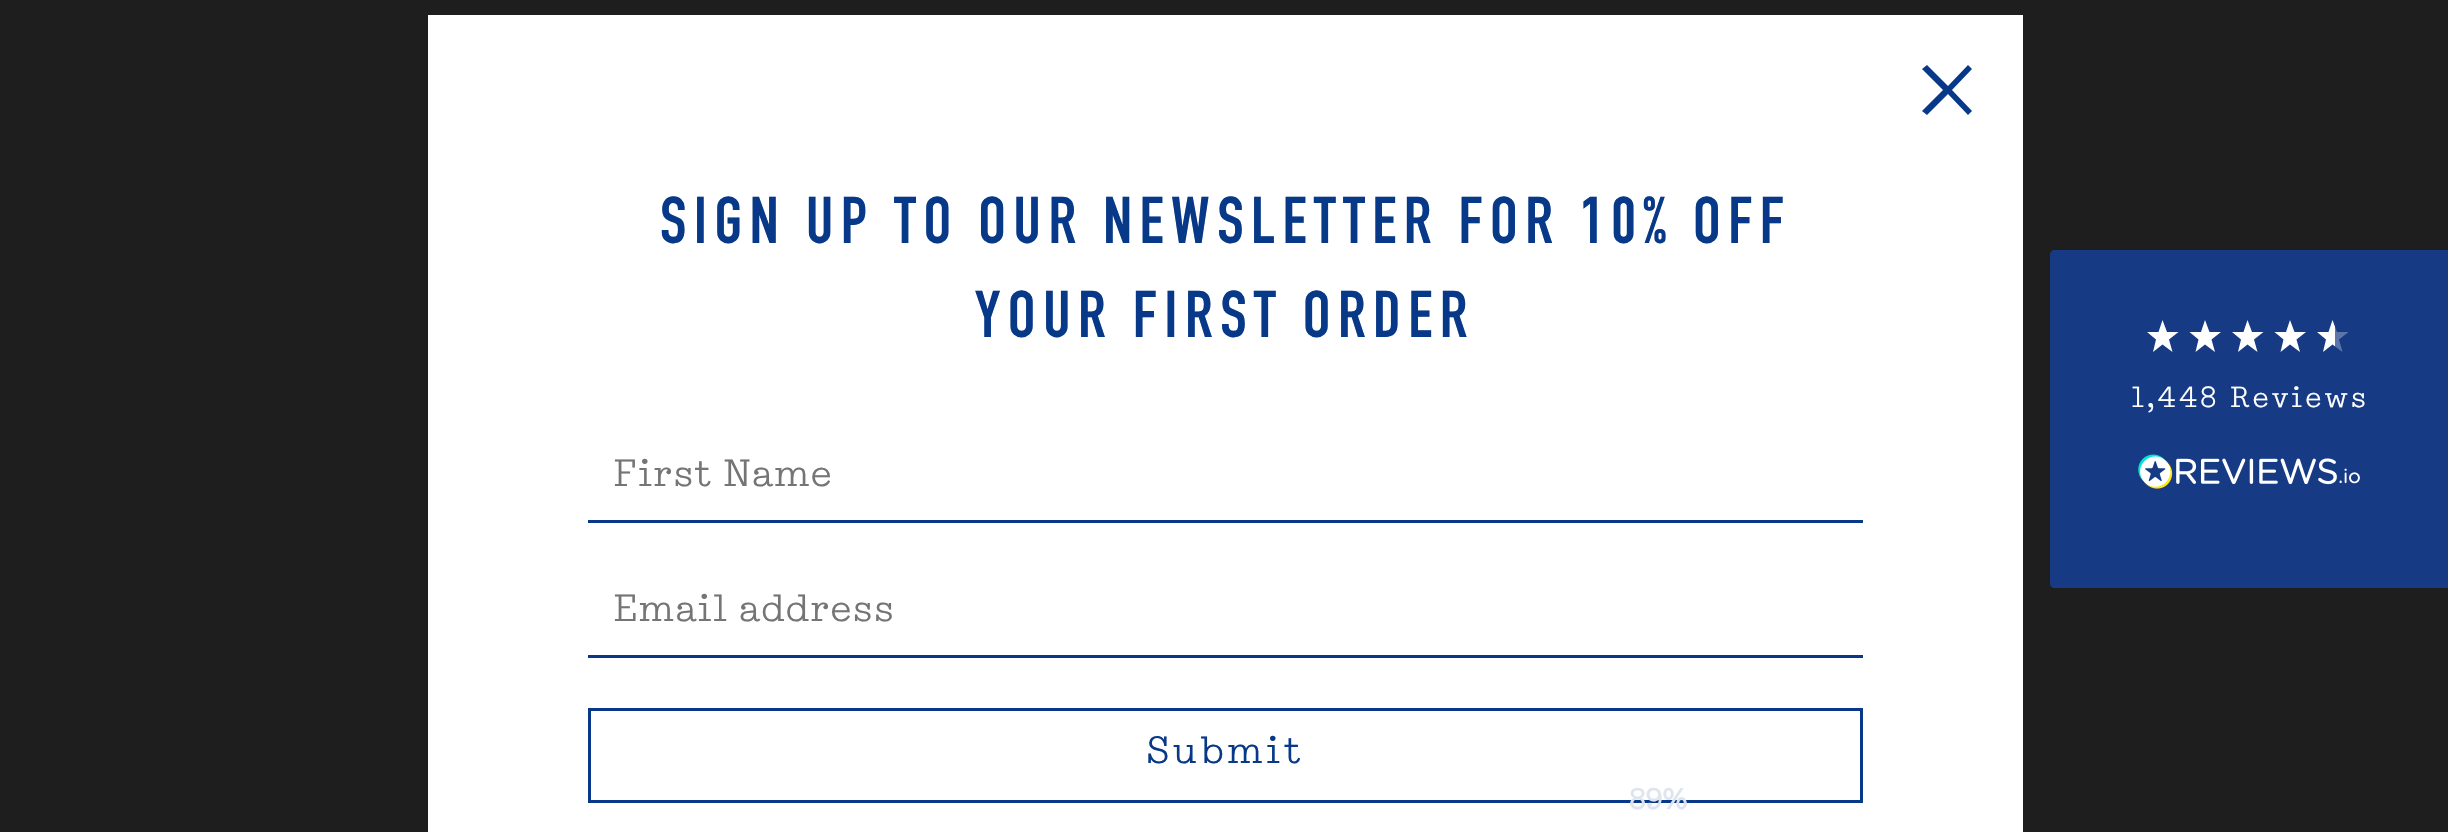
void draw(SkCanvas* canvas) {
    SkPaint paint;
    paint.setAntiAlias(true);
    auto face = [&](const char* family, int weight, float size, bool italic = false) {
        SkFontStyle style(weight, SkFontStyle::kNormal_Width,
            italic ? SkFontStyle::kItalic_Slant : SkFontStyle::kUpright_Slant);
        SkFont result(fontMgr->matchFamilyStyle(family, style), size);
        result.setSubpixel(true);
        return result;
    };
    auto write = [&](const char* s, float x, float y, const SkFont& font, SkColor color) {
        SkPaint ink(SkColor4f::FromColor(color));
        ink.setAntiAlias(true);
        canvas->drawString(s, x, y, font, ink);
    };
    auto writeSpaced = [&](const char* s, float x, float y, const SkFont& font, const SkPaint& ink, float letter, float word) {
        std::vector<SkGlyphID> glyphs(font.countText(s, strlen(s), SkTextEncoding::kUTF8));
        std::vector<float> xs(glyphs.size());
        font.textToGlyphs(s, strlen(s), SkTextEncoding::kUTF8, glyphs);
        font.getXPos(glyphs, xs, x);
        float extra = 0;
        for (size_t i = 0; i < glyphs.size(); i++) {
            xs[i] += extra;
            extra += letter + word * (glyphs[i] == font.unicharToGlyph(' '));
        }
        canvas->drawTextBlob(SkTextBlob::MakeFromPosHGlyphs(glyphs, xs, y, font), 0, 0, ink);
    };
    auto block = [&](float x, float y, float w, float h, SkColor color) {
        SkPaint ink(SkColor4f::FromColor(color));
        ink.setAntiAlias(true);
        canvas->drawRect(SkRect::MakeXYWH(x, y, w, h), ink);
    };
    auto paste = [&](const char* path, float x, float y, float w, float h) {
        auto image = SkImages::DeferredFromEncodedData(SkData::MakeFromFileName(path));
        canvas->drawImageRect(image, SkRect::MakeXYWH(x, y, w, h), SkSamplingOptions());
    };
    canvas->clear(SkColorSetRGB(30, 30, 31));
    block(428, 15, 1595, 817, SK_ColorWHITE);
    paint.setColor(SkColorSetRGB(7, 57, 136));
    canvas->drawPath(SkPathBuilder().moveTo(1952, 90).lineTo(1972, 69).lineTo(1968, 65).lineTo(1948, 86).lineTo(1927, 65).lineTo(1922, 69).lineTo(1943, 90).lineTo(1922, 111).lineTo(1927, 115).lineTo(1948, 94).lineTo(1968, 115).lineTo(1972, 111).close().detach(), paint);
    auto kFont1 = face("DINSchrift", 500, 65);
    writeSpaced("SIGN UP TO OUR NEWSLETTER FOR 10% OFF", 660, 243, kFont1, paint, 7.5f, 0);
    writeSpaced("YOUR FIRST ORDER", 975, 337, kFont1, paint, 7.5f, 0);
    block(588, 520, 1275, 3, SkColorSetRGB(7, 57, 136));
    auto kFont2 = face("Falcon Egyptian", 400, 42.5f);
    write("First Name", 613, 486, kFont2, SkColorSetRGB(117, 117, 117));
    block(588, 655, 1275, 3, SkColorSetRGB(7, 57, 136));
    write("Email address", 613, 621, kFont2, SkColorSetRGB(117, 117, 117));
    paint.setStyle(SkPaint::kStroke_Style);
    paint.setStrokeWidth(3);
    canvas->drawRect(SkRect::MakeXYWH(589.5f, 709.5f, 1272, 92), paint);
    paint.setStyle(SkPaint::kFill_Style);
    writeSpaced("Submit", 1146, 763, kFont2, paint, 2.5f, 0);
    paint.setColor(SkColorSetRGB(23, 58, 132));
    canvas->drawPath(SkPathBuilder().moveTo(2055, 250).lineTo(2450, 250).lineTo(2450, 588).lineTo(2055, 588).cubicTo(2052, 588, 2050, 586, 2050, 583).lineTo(2050, 255).cubicTo(2050, 252, 2052, 250, 2055, 250).close().detach(), paint);
    paint.setColor(SK_ColorWHITE);
    canvas->drawPath(SkPathBuilder().moveTo(2162.5f, 320).lineTo(2158.5f, 332).lineTo(2147, 332).lineTo(2156, 339.5f).lineTo(2153, 352).lineTo(2162.5f, 344.5f).lineTo(2172.5f, 352).lineTo(2169, 339.5f).lineTo(2178.5f, 332).lineTo(2167, 332).close().detach(), paint);
    canvas->drawPath(SkPathBuilder().moveTo(2205, 320).lineTo(2201, 332).lineTo(2189.5f, 332).lineTo(2198.5f, 339.5f).lineTo(2195.5f, 352).lineTo(2205, 344.5f).lineTo(2215, 352).lineTo(2211.5f, 339.5f).lineTo(2221, 332).lineTo(2209.5f, 332).close().detach(), paint);
    canvas->drawPath(SkPathBuilder().moveTo(2247.5f, 320).lineTo(2243.5f, 332).lineTo(2232, 332).lineTo(2241, 339.5f).lineTo(2238, 352).lineTo(2247.5f, 344.5f).lineTo(2257.5f, 352).lineTo(2254, 339.5f).lineTo(2263.5f, 332).lineTo(2252, 332).close().detach(), paint);
    canvas->drawPath(SkPathBuilder().moveTo(2290, 320).lineTo(2286, 332).lineTo(2274.5f, 332).lineTo(2283.5f, 339.5f).lineTo(2280.5f, 352).lineTo(2290, 344.5f).lineTo(2300, 352).lineTo(2296.5f, 339.5f).lineTo(2306, 332).lineTo(2294.5f, 332).close().detach(), paint);
    {
        const SkColor colors[] = {SK_ColorWHITE, SkColorSetRGB(93, 117, 169)};
        const float stops[] = {0.5f, 0.5f};
        const SkPoint ends[] = {{2314, 337}, {2356, 337}};
        paint.setShader(SkGradientShader::MakeLinear(ends, colors, stops, 2, SkTileMode::kClamp));
        paint.setAlpha(255);
    }
    canvas->drawPath(SkPathBuilder().moveTo(2332.5f, 320).lineTo(2328.5f, 332).lineTo(2317, 332).lineTo(2326, 339.5f).lineTo(2323, 352).lineTo(2332.5f, 344.5f).lineTo(2342.5f, 352).lineTo(2339, 339.5f).lineTo(2348.5f, 332).lineTo(2337, 332).close().detach(), paint);
    auto kFont3 = face("Falcon Egyptian", 400, 32.5f);
    paint.setShader(nullptr);
    paint.setColor(SK_ColorWHITE);
    writeSpaced("1,448 Reviews", 2130, 407, kFont3, paint, 2.5f, 0);
    paste("pic1.png", 2138, 454, 222, 35);
    auto kFont4 = face("Falcon Egyptian", 700, 32);
    write("89%", 1629, 809, kFont4, SkColorSetRGB(222, 229, 239));
}
